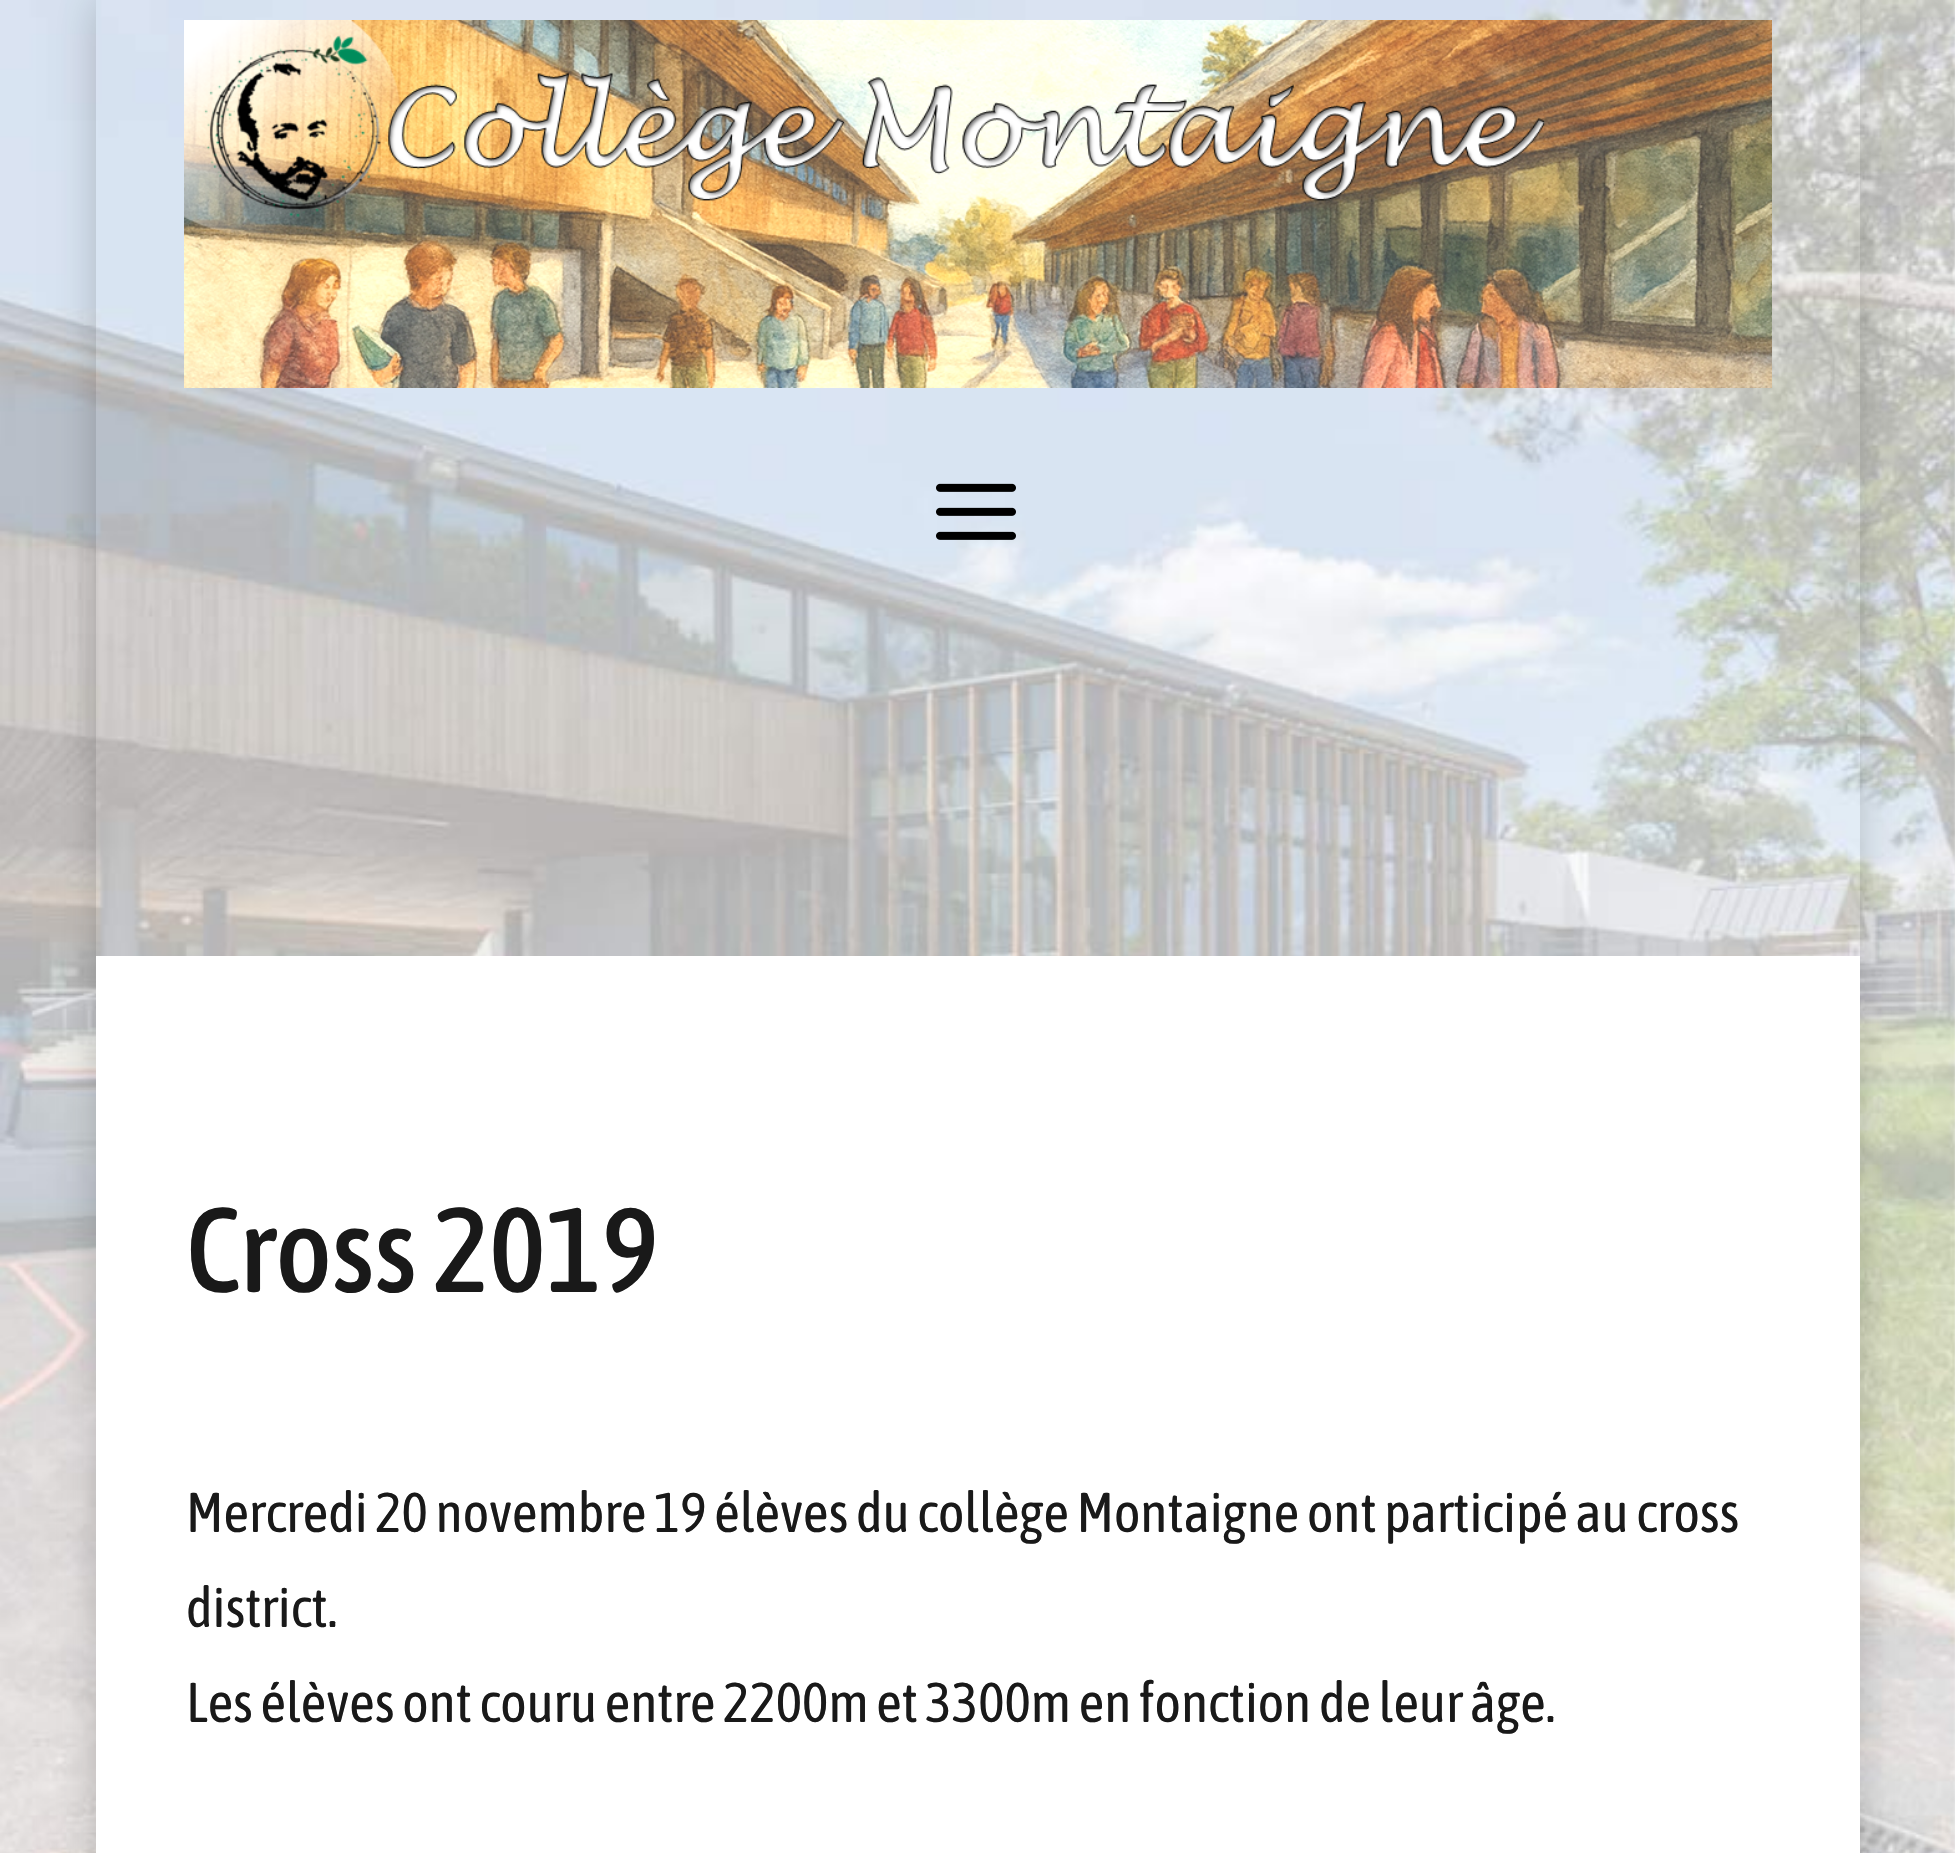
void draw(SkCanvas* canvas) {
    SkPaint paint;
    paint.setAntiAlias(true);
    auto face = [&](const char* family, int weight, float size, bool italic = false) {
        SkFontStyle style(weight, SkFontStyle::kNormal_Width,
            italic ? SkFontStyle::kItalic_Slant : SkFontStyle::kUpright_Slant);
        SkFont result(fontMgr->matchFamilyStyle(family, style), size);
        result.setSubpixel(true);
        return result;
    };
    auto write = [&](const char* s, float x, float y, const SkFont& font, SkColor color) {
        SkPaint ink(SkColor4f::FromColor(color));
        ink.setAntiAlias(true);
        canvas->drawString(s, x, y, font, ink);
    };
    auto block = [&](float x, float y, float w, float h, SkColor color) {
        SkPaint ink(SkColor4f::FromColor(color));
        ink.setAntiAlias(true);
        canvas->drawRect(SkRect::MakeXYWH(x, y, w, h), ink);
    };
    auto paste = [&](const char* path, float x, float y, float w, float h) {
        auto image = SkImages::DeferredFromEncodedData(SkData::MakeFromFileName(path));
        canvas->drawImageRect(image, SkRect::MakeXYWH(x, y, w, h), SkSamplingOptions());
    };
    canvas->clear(SK_ColorWHITE);
    paste("pic1.png", 0, 0, 1955, 1853);
    canvas->save();
    canvas->clipPath(SkPathBuilder(SkPathFillType::kEvenOdd).moveTo(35, 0).lineTo(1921, 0).lineTo(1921, 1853).lineTo(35, 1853).close().moveTo(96, 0).lineTo(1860, 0).lineTo(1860, 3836).lineTo(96, 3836).close().detach(), true);
    paint.setColor(SkColorSetARGB(51, 0, 0, 0));
    paint.setMaskFilter(SkMaskFilter::MakeBlur(kNormal_SkBlurStyle, 20));
    canvas->drawRect(SkRect::MakeXYWH(96, 0, 1764, 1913), paint);
    paint.setMaskFilter(nullptr);
    canvas->restore();
    paste("pic2.png", 184, 20, 1588, 368);
    paste("pic3.png", 936, 483, 80, 57);
    block(96, 956, 1764, 897, SK_ColorWHITE);
    auto kFont1 = face("Asap Condensed", 500, 120);
    write("Cross 2019", 186, 1292, kFont1, SkColorSetRGB(25, 25, 25));
    auto kFont2 = face("Asap Condensed", 400, 56);
    write("Mercredi 20 novembre 19 élèves du collège Montaigne ont participé au cross", 186, 1532, kFont2, SkColorSetRGB(25, 25, 25));
    write("district.", 186, 1627, kFont2, SkColorSetRGB(25, 25, 25));
    write("Les élèves ont couru entre 2200m et 3300m en fonction de leur âge.", 186, 1722, kFont2, SkColorSetRGB(25, 25, 25));
}
